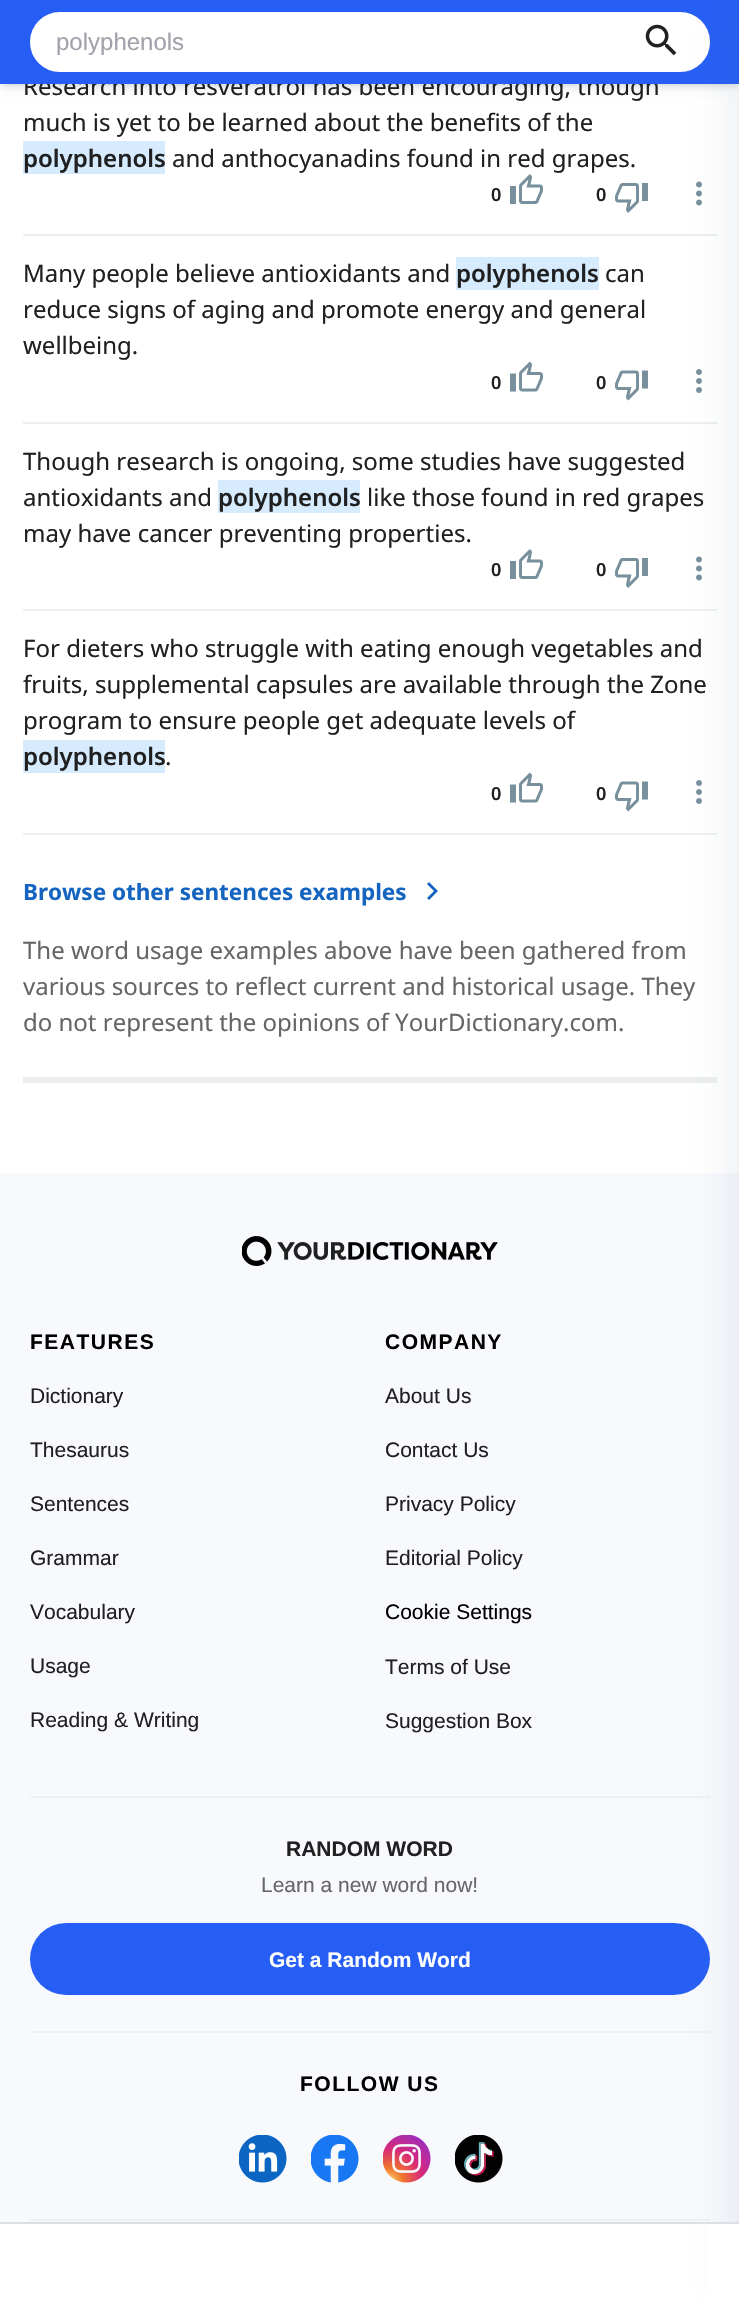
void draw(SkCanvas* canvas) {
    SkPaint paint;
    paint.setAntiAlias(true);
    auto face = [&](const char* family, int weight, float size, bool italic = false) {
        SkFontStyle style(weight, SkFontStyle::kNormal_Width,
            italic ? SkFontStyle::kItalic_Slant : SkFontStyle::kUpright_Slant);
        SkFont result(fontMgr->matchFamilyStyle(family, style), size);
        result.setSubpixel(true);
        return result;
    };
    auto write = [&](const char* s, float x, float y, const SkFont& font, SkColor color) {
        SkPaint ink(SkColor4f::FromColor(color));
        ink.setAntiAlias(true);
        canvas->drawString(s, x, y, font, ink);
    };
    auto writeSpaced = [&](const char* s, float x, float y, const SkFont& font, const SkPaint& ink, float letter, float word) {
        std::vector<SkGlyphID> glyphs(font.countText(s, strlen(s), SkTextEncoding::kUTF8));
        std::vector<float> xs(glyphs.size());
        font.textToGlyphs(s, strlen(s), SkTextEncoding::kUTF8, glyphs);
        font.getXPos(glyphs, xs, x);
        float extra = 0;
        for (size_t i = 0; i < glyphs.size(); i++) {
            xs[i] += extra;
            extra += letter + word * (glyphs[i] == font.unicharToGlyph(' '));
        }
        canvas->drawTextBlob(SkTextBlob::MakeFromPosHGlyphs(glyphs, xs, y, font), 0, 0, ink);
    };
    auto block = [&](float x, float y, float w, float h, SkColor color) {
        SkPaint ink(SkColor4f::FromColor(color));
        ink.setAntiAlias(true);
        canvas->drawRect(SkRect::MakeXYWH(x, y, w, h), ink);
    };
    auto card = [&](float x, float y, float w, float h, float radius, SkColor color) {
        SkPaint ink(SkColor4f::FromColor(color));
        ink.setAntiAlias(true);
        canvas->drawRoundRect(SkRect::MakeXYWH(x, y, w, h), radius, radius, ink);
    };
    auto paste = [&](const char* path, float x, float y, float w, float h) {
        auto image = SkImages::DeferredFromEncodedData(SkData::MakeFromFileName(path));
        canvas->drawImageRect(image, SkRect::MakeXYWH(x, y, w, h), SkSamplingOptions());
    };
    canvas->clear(SK_ColorWHITE);
    paint.setColor(SkColorSetARGB(51, 84, 110, 122));
    paint.setMaskFilter(SkMaskFilter::MakeBlur(kNormal_SkBlurStyle, 3));
    canvas->drawRect(SkRect::MakeXYWH(2, -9, 736, 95), paint);
    paint.setMaskFilter(nullptr);
    paint.setColor(SkColorSetARGB(31, 84, 110, 122));
    paint.setMaskFilter(SkMaskFilter::MakeBlur(kNormal_SkBlurStyle, 7.5f));
    canvas->drawRect(SkRect::MakeXYWH(0, -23, 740, 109), paint);
    paint.setMaskFilter(nullptr);
    auto kFont1 = face("Noto Sans", 400, 24);
    write("Research into resveratrol has been encouraging, though", 23, 95, kFont1, SkColorSetRGB(32, 32, 33));
    block(0, 0, 739, 84, SkColorSetRGB(38, 94, 245));
    paint.setColor(SK_ColorWHITE);
    canvas->drawRoundRect(SkRect::MakeXYWH(31.5f, 13.5f, 677, 57), 28.5f, 28.5f, paint);
    paint.setStyle(SkPaint::kStroke_Style);
    paint.setStrokeWidth(3);
    canvas->drawRoundRect(SkRect::MakeXYWH(31.5f, 13.5f, 677, 57), 28.5f, 28.5f, paint);
    auto kFont2 = face("Liberation Sans", 400, 24);
    write("polyphenols", 56, 50, kFont2, SkColorSetRGB(161, 161, 170));
    paste("pic1.png", 645, 24, 32, 32);
    block(23, 234, 694, 2, SkColorSetRGB(236, 239, 241));
    paste("pic4.png", 696, 181, 6, 25);
    block(23, 422, 694, 2, SkColorSetRGB(236, 239, 241));
    paste("pic7.png", 696, 369, 6, 24);
    block(23, 609, 694, 2, SkColorSetRGB(236, 239, 241));
    paste("pic4.png", 696, 556, 6, 25);
    block(23, 833, 694, 2, SkColorSetRGB(236, 239, 241));
    paste("pic7.png", 696, 780, 6, 24);
    block(23, 1077, 694, 6, SkColorSetRGB(236, 239, 241));
    block(0, 1173, 739, 1049, SkColorSetRGB(248, 249, 253));
    block(30, 1796, 680, 2, SkColorSetRGB(237, 241, 246));
    block(30, 2031, 680, 2, SkColorSetRGB(237, 241, 246));
    card(30, 1923, 680, 72, 36, SkColorSetRGB(38, 94, 245));
    block(30, 2219, 680, 2, SkColorSetRGB(237, 241, 246));
    paint.setStyle(SkPaint::kFill_Style);
    paint.setColor(SkColorSetARGB(31, 84, 110, 122));
    paint.setMaskFilter(SkMaskFilter::MakeBlur(kNormal_SkBlurStyle, 22.5f));
    canvas->drawRect(SkRect::MakeXYWH(732, 2, 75, 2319), paint);
    paint.setMaskFilter(nullptr);
    write("much is yet to be learned about the benefits of the", 23, 131, kFont1, SkColorSetRGB(32, 32, 33));
    block(23, 141, 142, 33, SkColorSetRGB(214, 235, 253));
    auto kFont3 = face("Noto Sans", 600, 24);
    write("polyphenols", 23, 167, kFont3, SkColorSetRGB(32, 32, 33));
    write("and anthocyanadins found in red grapes.", 172, 167, kFont1, SkColorSetRGB(32, 32, 33));
    auto kFont4 = face("Noto Sans", 600, 18);
    write("0", 491, 201, kFont4, SkColorSetRGB(32, 32, 33));
    paste("pic2.png", 510, 174, 33, 30);
    write("0", 596, 201, kFont4, SkColorSetRGB(32, 32, 33));
    paste("pic3.png", 615, 183, 33, 30);
    write("Many people believe antioxidants and", 23, 282, kFont1, SkColorSetRGB(32, 32, 33));
    block(456, 257, 143, 33, SkColorSetRGB(214, 235, 253));
    write("polyphenols", 456, 282, kFont3, SkColorSetRGB(32, 32, 33));
    write("can", 605, 282, kFont1, SkColorSetRGB(32, 32, 33));
    write("reduce signs of aging and promote energy and general", 23, 318, kFont1, SkColorSetRGB(32, 32, 33));
    write("wellbeing.", 23, 354, kFont1, SkColorSetRGB(32, 32, 33));
    write("0", 491, 389, kFont4, SkColorSetRGB(32, 32, 33));
    paste("pic5.png", 510, 361, 33, 31);
    write("0", 596, 389, kFont4, SkColorSetRGB(32, 32, 33));
    paste("pic6.png", 615, 370, 33, 31);
    write("Though research is ongoing, some studies have suggested", 23, 470, kFont1, SkColorSetRGB(32, 32, 33));
    write("antioxidants and", 23, 506, kFont1, SkColorSetRGB(32, 32, 33));
    block(218, 480, 142, 33, SkColorSetRGB(214, 235, 253));
    write("polyphenols", 218, 506, kFont3, SkColorSetRGB(32, 32, 33));
    write("like those found in red grapes", 367, 506, kFont1, SkColorSetRGB(32, 32, 33));
    write("may have cancer preventing properties.", 23, 542, kFont1, SkColorSetRGB(32, 32, 33));
    write("0", 491, 576, kFont4, SkColorSetRGB(32, 32, 33));
    paste("pic2.png", 510, 549, 33, 30);
    write("0", 596, 576, kFont4, SkColorSetRGB(32, 32, 33));
    paste("pic3.png", 615, 558, 33, 30);
    write("For dieters who struggle with eating enough vegetables and", 23, 657, kFont1, SkColorSetRGB(32, 32, 33));
    write("fruits, supplemental capsules are available through the Zone", 23, 693, kFont1, SkColorSetRGB(32, 32, 33));
    write("program to ensure people get adequate levels of", 23, 729, kFont1, SkColorSetRGB(32, 32, 33));
    block(23, 740, 142, 33, SkColorSetRGB(214, 235, 253));
    write("polyphenols", 23, 765, kFont3, SkColorSetRGB(32, 32, 33));
    write(".", 165, 765, kFont1, SkColorSetRGB(32, 32, 33));
    write("0", 491, 800, kFont4, SkColorSetRGB(32, 32, 33));
    paste("pic5.png", 510, 772, 33, 31);
    write("0", 596, 800, kFont4, SkColorSetRGB(32, 32, 33));
    paste("pic6.png", 615, 781, 33, 31);
    auto kFont5 = face("Noto Sans", 700, 22.5f);
    write("Browse other sentences examples", 23, 900, kFont5, SkColorSetRGB(21, 101, 192));
    paint.setColor(SkColorSetRGB(21, 101, 192));
    canvas->drawPath(SkPathBuilder().moveTo(429, 882).lineTo(427, 884).lineTo(434, 891).lineTo(427, 898).lineTo(429, 900).lineTo(438, 891).close().detach(), paint);
    write("The word usage examples above have been gathered from", 23, 959, kFont1, SkColorSetRGB(102, 102, 102));
    write("various sources to reflect current and historical usage. They", 23, 995, kFont1, SkColorSetRGB(102, 102, 102));
    write("do not represent the opinions of YourDictionary.com.", 23, 1031, kFont1, SkColorSetRGB(102, 102, 102));
    paste("pic8.png", 242, 1236, 256, 30);
    auto kFont6 = face("Liberation Sans", 700, 21);
    paint.setColor(SK_ColorBLACK);
    writeSpaced("FEATURES", 30, 1349, kFont6, paint, 1.5f, 0);
    auto kFont7 = face("Liberation Sans", 400, 21);
    write("Dictionary", 30, 1403, kFont7, SkColorSetRGB(32, 32, 33));
    write("Thesaurus", 30, 1457, kFont7, SkColorSetRGB(32, 32, 33));
    write("Sentences", 30, 1511, kFont7, SkColorSetRGB(32, 32, 33));
    write("Grammar", 30, 1565, kFont7, SkColorSetRGB(32, 32, 33));
    write("Vocabulary", 30, 1619, kFont7, SkColorSetRGB(32, 32, 33));
    write("Usage", 30, 1673, kFont7, SkColorSetRGB(32, 32, 33));
    write("Reading & Writing", 30, 1727, kFont7, SkColorSetRGB(32, 32, 33));
    writeSpaced("COMPANY", 385, 1349, kFont6, paint, 1.5f, 0);
    write("About Us", 385, 1403, kFont7, SkColorSetRGB(32, 32, 33));
    write("Contact Us", 385, 1457, kFont7, SkColorSetRGB(32, 32, 33));
    write("Privacy Policy", 385, 1511, kFont7, SkColorSetRGB(32, 32, 33));
    write("Editorial Policy", 385, 1565, kFont7, SkColorSetRGB(32, 32, 33));
    write("Cookie Settings", 385, 1619, kFont7, SK_ColorBLACK);
    write("Terms of Use", 385, 1674, kFont7, SkColorSetRGB(32, 32, 33));
    write("Suggestion Box", 385, 1728, kFont7, SkColorSetRGB(32, 32, 33));
    write("RANDOM WORD", 286, 1856, kFont6, SkColorSetRGB(32, 32, 33));
    write("Learn a new word now!", 261, 1892, kFont7, SkColorSetRGB(102, 102, 102));
    write("Get a Random Word", 269, 1967, kFont6, SK_ColorWHITE);
    writeSpaced("FOLLOW US", 300, 2091, kFont6, paint, 1.5f, 0);
    paste("pic9.png", 239, 2135, 48, 48);
    paste("pic10.png", 311, 2135, 48, 48);
    paste("pic11.png", 383, 2135, 48, 48);
    paste("pic12.png", 455, 2135, 48, 48);
    block(706, 2224, 33, 79, SK_ColorWHITE);
    block(0, 2222, 739, 2, SkColorSetRGB(218, 224, 227));
}
